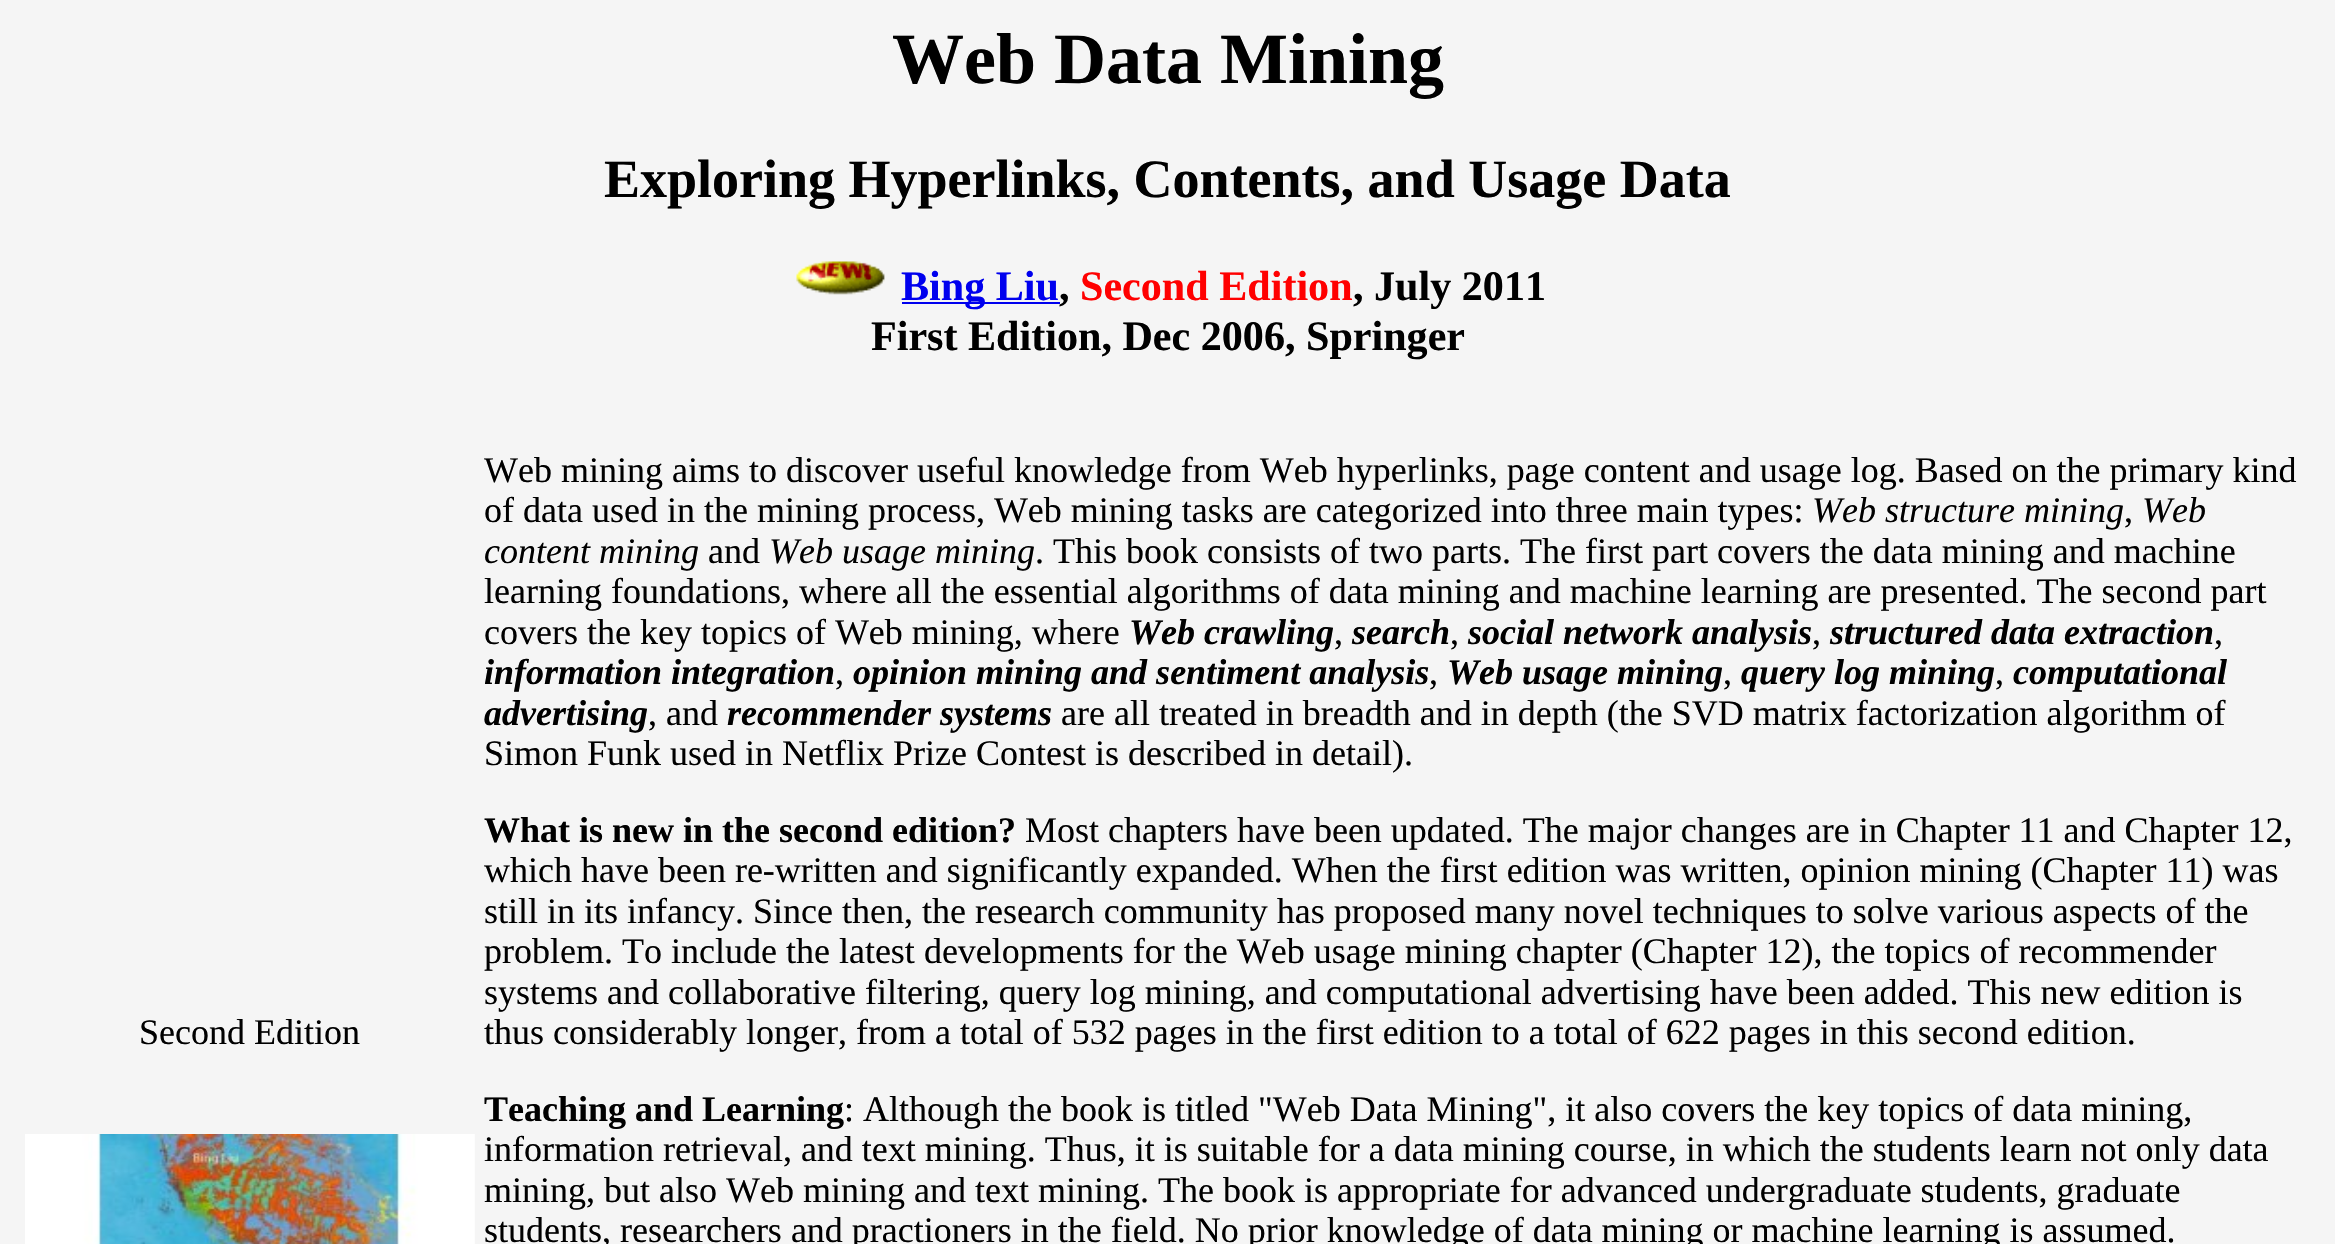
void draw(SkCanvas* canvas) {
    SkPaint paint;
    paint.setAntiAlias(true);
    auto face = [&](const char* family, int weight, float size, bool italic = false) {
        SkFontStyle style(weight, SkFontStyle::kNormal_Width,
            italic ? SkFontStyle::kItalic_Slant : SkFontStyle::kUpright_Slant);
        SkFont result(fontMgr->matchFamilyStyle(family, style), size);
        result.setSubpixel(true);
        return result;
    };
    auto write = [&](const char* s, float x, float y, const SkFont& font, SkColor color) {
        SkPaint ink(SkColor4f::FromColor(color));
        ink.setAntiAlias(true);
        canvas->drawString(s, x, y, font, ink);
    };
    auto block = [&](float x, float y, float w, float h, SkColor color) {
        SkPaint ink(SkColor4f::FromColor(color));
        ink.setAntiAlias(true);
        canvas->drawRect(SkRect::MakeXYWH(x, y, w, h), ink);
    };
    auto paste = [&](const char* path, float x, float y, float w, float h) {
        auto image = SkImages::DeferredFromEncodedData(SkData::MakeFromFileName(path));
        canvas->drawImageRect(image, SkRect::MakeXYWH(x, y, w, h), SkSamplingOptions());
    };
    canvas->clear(SkColorSetRGB(245, 245, 245));
    auto kFont1 = face("Liberation Serif", 700, 72);
    write("Web Data Mining", 892, 83, kFont1, SK_ColorBLACK);
    auto kFont2 = face("Liberation Serif", 700, 54);
    write("Exploring Hyperlinks, Contents, and Usage Data", 604, 197, kFont2, SK_ColorBLACK);
    paste("pic1.png", 796, 261, 89, 34);
    block(902, 302, 158, 2, SkColorSetRGB(0, 0, 238));
    auto kFont3 = face("Liberation Serif", 700, 42.1f);
    write("Bing Liu", 901, 300, kFont3, SkColorSetRGB(0, 0, 238));
    write(",", 1059, 300, kFont3, SK_ColorBLACK);
    write("Second Edition", 1080, 300, kFont3, SkColorSetRGB(255, 0, 0));
    write(", July 2011", 1353, 300, kFont3, SK_ColorBLACK);
    write("First Edition, Dec 2006, Springer", 871, 350, kFont3, SK_ColorBLACK);
    auto kFont4 = face("Liberation Serif", 400, 36);
    write("Second Edition", 139, 1044, kFont4, SK_ColorBLACK);
    paste("pic2.png", 25, 1134, 450, 110);
    write("Web mining aims to discover useful knowledge from Web hyperlinks, page content and usage log. Based on the primary kind", 484, 482, kFont4, SK_ColorBLACK);
    write("of data used in the mining process, Web mining tasks are categorized into three main types:", 484, 522, kFont4, SK_ColorBLACK);
    auto kFont5 = face("Liberation Serif", 400, 36, true);
    write("Web structure mining", 1812, 522, kFont5, SK_ColorBLACK);
    write(",", 2124, 522, kFont4, SK_ColorBLACK);
    write("Web", 2142, 522, kFont5, SK_ColorBLACK);
    write("content mining", 484, 563, kFont5, SK_ColorBLACK);
    write("and", 708, 563, kFont4, SK_ColorBLACK);
    write("Web usage mining", 769, 563, kFont5, SK_ColorBLACK);
    write(". This book consists of two parts. The first part covers the data mining and machine", 1035, 563, kFont4, SK_ColorBLACK);
    write("learning foundations, where all the essential algorithms of data mining and machine learning are presented. The second part", 484, 603, kFont4, SK_ColorBLACK);
    write("covers the key topics of Web mining, where", 484, 644, kFont4, SK_ColorBLACK);
    auto kFont6 = face("Liberation Serif", 700, 36, true);
    write("Web crawling", 1129, 644, kFont6, SK_ColorBLACK);
    write(",", 1334, 644, kFont4, SK_ColorBLACK);
    write("search", 1352, 644, kFont6, SK_ColorBLACK);
    write(",", 1450, 644, kFont4, SK_ColorBLACK);
    write("social network analysis", 1468, 644, kFont6, SK_ColorBLACK);
    write(",", 1812, 644, kFont4, SK_ColorBLACK);
    write("structured data extraction", 1830, 644, kFont6, SK_ColorBLACK);
    write(",", 2214, 644, kFont4, SK_ColorBLACK);
    write("information integration", 484, 684, kFont6, SK_ColorBLACK);
    write(",", 835, 684, kFont4, SK_ColorBLACK);
    write("opinion mining and sentiment analysis", 853, 684, kFont6, SK_ColorBLACK);
    write(",", 1429, 684, kFont4, SK_ColorBLACK);
    write("Web usage mining", 1447, 684, kFont6, SK_ColorBLACK);
    write(",", 1723, 684, kFont4, SK_ColorBLACK);
    write("query log mining", 1741, 684, kFont6, SK_ColorBLACK);
    write(",", 1995, 684, kFont4, SK_ColorBLACK);
    write("computational", 2013, 684, kFont6, SK_ColorBLACK);
    write("advertising", 484, 725, kFont6, SK_ColorBLACK);
    write(", and", 648, 725, kFont4, SK_ColorBLACK);
    write("recommender systems", 727, 725, kFont6, SK_ColorBLACK);
    write("are all treated in breadth and in depth (the SVD matrix factorization algorithm of", 1061, 725, kFont4, SK_ColorBLACK);
    write("Simon Funk used in Netflix Prize Contest is described in detail).", 484, 765, kFont4, SK_ColorBLACK);
    auto kFont7 = face("Liberation Serif", 700, 36);
    write("What is new in the second edition?", 484, 842, kFont7, SK_ColorBLACK);
    write("Most chapters have been updated. The major changes are in Chapter 11 and Chapter 12,", 1025, 842, kFont4, SK_ColorBLACK);
    write("which have been re-written and significantly expanded. When the first edition was written, opinion mining (Chapter 11) was", 484, 882, kFont4, SK_ColorBLACK);
    write("still in its infancy. Since then, the research community has proposed many novel techniques to solve various aspects of the", 484, 923, kFont4, SK_ColorBLACK);
    write("problem. To include the latest developments for the Web usage mining chapter (Chapter 12), the topics of recommender", 484, 963, kFont4, SK_ColorBLACK);
    write("systems and collaborative filtering, query log mining, and computational advertising have been added. This new edition is", 484, 1004, kFont4, SK_ColorBLACK);
    write("thus considerably longer, from a total of 532 pages in the first edition to a total of 622 pages in this second edition.", 484, 1044, kFont4, SK_ColorBLACK);
    write("Teaching and Learning", 484, 1121, kFont7, SK_ColorBLACK);
    write(": Although the book is titled \"Web Data Mining\", it also covers the key topics of data mining,", 844, 1121, kFont4, SK_ColorBLACK);
    write("information retrieval, and text mining. Thus, it is suitable for a data mining course, in which the students learn not only data", 484, 1161, kFont4, SK_ColorBLACK);
    write("mining, but also Web mining and text mining. The book is appropriate for advanced undergraduate students, graduate", 484, 1202, kFont4, SK_ColorBLACK);
    write("students, researchers and practioners in the field. No prior knowledge of data mining or machine learning is assumed.", 484, 1242, kFont4, SK_ColorBLACK);
}
